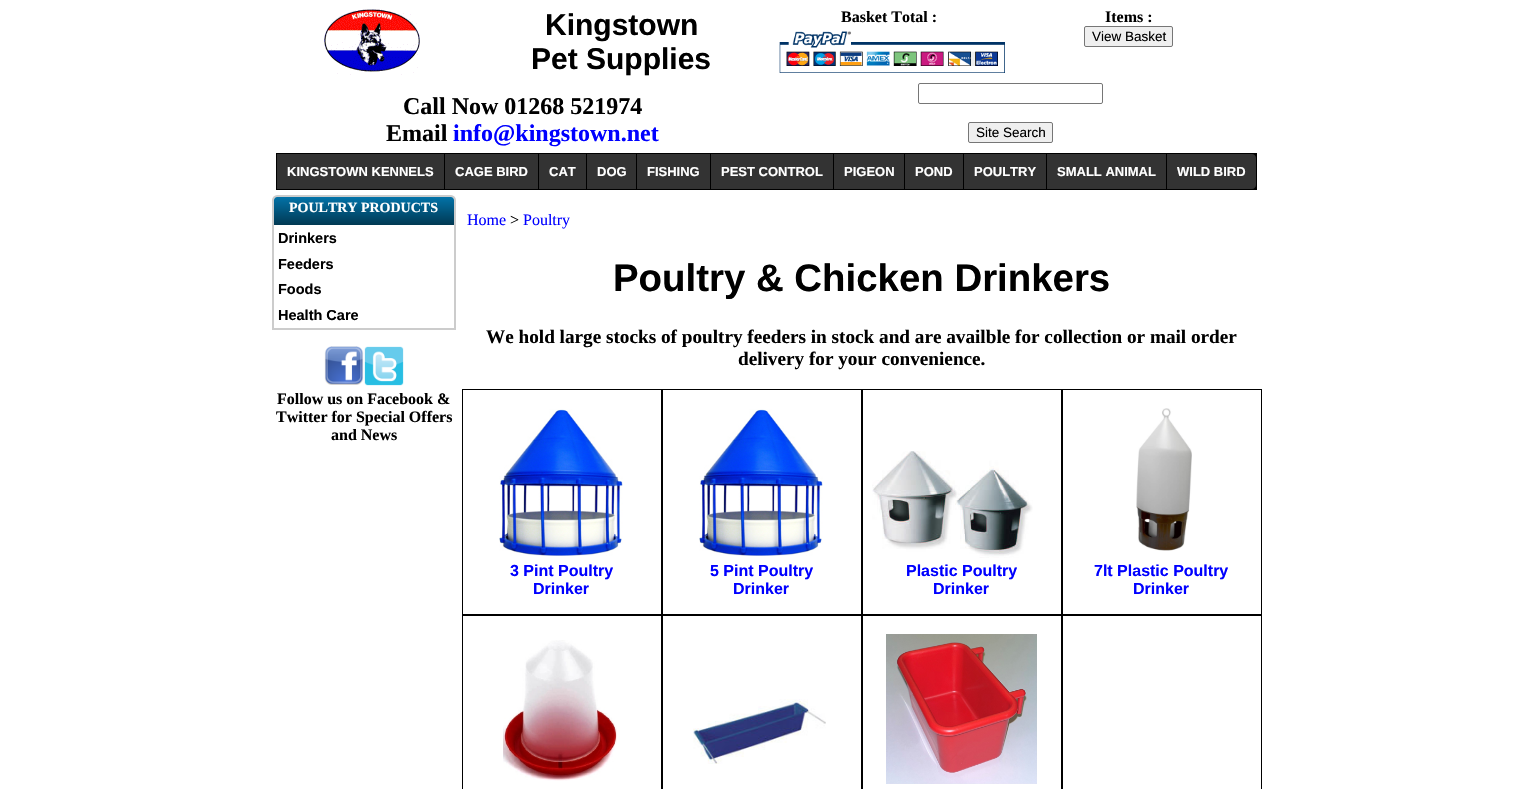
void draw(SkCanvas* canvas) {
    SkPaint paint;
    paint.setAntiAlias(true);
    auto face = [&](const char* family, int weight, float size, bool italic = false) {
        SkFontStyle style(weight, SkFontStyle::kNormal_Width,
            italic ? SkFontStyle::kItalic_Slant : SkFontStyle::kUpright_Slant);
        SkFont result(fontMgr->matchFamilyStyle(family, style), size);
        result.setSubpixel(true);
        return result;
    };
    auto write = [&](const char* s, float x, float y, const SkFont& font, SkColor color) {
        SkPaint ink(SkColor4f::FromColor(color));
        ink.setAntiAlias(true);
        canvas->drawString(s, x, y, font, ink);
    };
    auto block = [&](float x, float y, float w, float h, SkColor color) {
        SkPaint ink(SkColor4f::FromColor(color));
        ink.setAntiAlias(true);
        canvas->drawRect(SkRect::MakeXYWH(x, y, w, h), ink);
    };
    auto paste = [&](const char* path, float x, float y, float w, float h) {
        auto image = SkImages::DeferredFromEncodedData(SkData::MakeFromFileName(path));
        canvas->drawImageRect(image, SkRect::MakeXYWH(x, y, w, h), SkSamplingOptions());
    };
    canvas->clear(SK_ColorWHITE);
    paste("pic1.png", 324, 9, 96, 66);
    auto kFont1 = face("Liberation Sans", 700, 30);
    write("Kingstown", 545, 35, kFont1, SK_ColorBLACK);
    write("Pet Supplies", 531, 69, kFont1, SK_ColorBLACK);
    auto kFont2 = face("Liberation Serif", 700, 16);
    write("Basket Total :", 841, 22, kFont2, SK_ColorBLACK);
    paste("pic2.png", 779, 31, 226, 42);
    write("Items :", 1105, 22, kFont2, SK_ColorBLACK);
    paint.setColor(SkColorSetRGB(239, 239, 239));
    canvas->drawRoundRect(SkRect::MakeXYWH(1084.5f, 26.5f, 88, 20), 1.5f, 1.5f, paint);
    paint.setStyle(SkPaint::kStroke_Style);
    paint.setStrokeWidth(1);
    paint.setColor(SkColorSetRGB(118, 118, 118));
    canvas->drawRoundRect(SkRect::MakeXYWH(1084.5f, 26.5f, 88, 20), 1.5f, 1.5f, paint);
    auto kFont3 = face("Liberation Sans", 400, 13.5f);
    write("View Basket", 1092, 41, kFont3, SK_ColorBLACK);
    auto kFont4 = face("Liberation Serif", 700, 24);
    write("Call Now 01268 521974", 403, 114, kFont4, SK_ColorBLACK);
    write("Email", 386, 141, kFont4, SK_ColorBLACK);
    write("info@kingstown.net", 453, 141, kFont4, SkColorSetRGB(0, 0, 255));
    canvas->drawRoundRect(SkRect::MakeXYWH(918.5f, 83.5f, 184, 20), 1.5f, 1.5f, paint);
    paint.setStyle(SkPaint::kFill_Style);
    paint.setColor(SkColorSetRGB(239, 239, 239));
    canvas->drawRoundRect(SkRect::MakeXYWH(968.5f, 122.5f, 84, 20), 1.5f, 1.5f, paint);
    paint.setStyle(SkPaint::kStroke_Style);
    paint.setColor(SkColorSetRGB(118, 118, 118));
    canvas->drawRoundRect(SkRect::MakeXYWH(968.5f, 122.5f, 84, 20), 1.5f, 1.5f, paint);
    write("Site Search", 976, 137, kFont3, SK_ColorBLACK);
    block(276, 153, 981, 37, SK_ColorBLACK);
    block(277, 154, 167, 35, SkColorSetRGB(51, 51, 51));
    auto kFont5 = face("Liberation Sans", 700, 13);
    write("KINGSTOWN KENNELS", 287, 176, kFont5, SK_ColorWHITE);
    block(445, 154, 93, 35, SkColorSetRGB(51, 51, 51));
    write("CAGE BIRD", 455, 176, kFont5, SK_ColorWHITE);
    block(539, 154, 47, 35, SkColorSetRGB(51, 51, 51));
    write("CAT", 549, 176, kFont5, SK_ColorWHITE);
    block(587, 154, 49, 35, SkColorSetRGB(51, 51, 51));
    write("DOG", 597, 176, kFont5, SK_ColorWHITE);
    block(637, 154, 73, 35, SkColorSetRGB(51, 51, 51));
    write("FISHING", 647, 176, kFont5, SK_ColorWHITE);
    block(711, 154, 122, 35, SkColorSetRGB(51, 51, 51));
    write("PEST CONTROL", 721, 176, kFont5, SK_ColorWHITE);
    block(834, 154, 70, 35, SkColorSetRGB(51, 51, 51));
    write("PIGEON", 844, 176, kFont5, SK_ColorWHITE);
    block(905, 154, 58, 35, SkColorSetRGB(51, 51, 51));
    write("POND", 915, 176, kFont5, SK_ColorWHITE);
    block(964, 154, 82, 35, SkColorSetRGB(51, 51, 51));
    write("POULTRY", 974, 176, kFont5, SK_ColorWHITE);
    block(1047, 154, 119, 35, SkColorSetRGB(51, 51, 51));
    write("SMALL ANIMAL", 1057, 176, kFont5, SK_ColorWHITE);
    paint.setStyle(SkPaint::kFill_Style);
    paint.setColor(SkColorSetRGB(51, 51, 51));
    canvas->drawPath(SkPathBuilder().moveTo(1167, 154).lineTo(1252, 154).cubicTo(1254, 154, 1256, 156, 1256, 158).lineTo(1256, 185).cubicTo(1256, 187, 1254, 189, 1252, 189).lineTo(1167, 189).close().detach(), paint);
    write("WILD BIRD", 1177, 176, kFont5, SK_ColorWHITE);
    paint.setStyle(SkPaint::kStroke_Style);
    paint.setStrokeWidth(2);
    paint.setColor(SkColorSetRGB(204, 204, 204));
    canvas->drawPath(SkPathBuilder().moveTo(277, 196).lineTo(451, 196).cubicTo(453, 196, 455, 198, 455, 200).lineTo(455, 329).lineTo(273, 329).lineTo(273, 200).cubicTo(273, 198, 275, 196, 277, 196).close().detach(), paint);
    paint.setStyle(SkPaint::kFill_Style);
    {
        const SkColor colors[] = {SkColorSetRGB(2, 114, 167), SkColorSetRGB(1, 57, 83)};
        const float stops[] = {0, 1};
        const SkPoint ends[] = {{274, 197}, {274, 225}};
        paint.setShader(SkGradientShader::MakeLinear(ends, colors, stops, 2, SkTileMode::kClamp));
        paint.setAlpha(255);
    }
    canvas->drawPath(SkPathBuilder().moveTo(277, 197).lineTo(451, 197).cubicTo(452.5f, 197, 454, 198.5f, 454, 200).lineTo(454, 225).lineTo(274, 225).lineTo(274, 200).cubicTo(274, 198.5f, 275.5f, 197, 277, 197).close().detach(), paint);
    auto kFont6 = face("Liberation Serif", 700, 14);
    write("POULTRY PRODUCTS", 289, 212, kFont6, SK_ColorWHITE);
    auto kFont7 = face("Liberation Sans", 700, 14.5f);
    write("Drinkers", 278, 243, kFont7, SK_ColorBLACK);
    write("Feeders", 278, 269, kFont7, SK_ColorBLACK);
    write("Foods", 278, 294, kFont7, SK_ColorBLACK);
    write("Health Care", 278, 320, kFont7, SK_ColorBLACK);
    paste("pic3.png", 324, 346, 40, 39);
    paste("pic4.png", 364, 346, 40, 40);
    write("Follow us on Facebook &", 277, 404, kFont2, SK_ColorBLACK);
    write("Twitter for Special Offers", 276, 422, kFont2, SK_ColorBLACK);
    write("and News", 331, 440, kFont2, SK_ColorBLACK);
    auto kFont8 = face("Liberation Serif", 400, 16);
    write("Home", 467, 225, kFont8, SkColorSetRGB(0, 0, 255));
    write(">", 510, 225, kFont8, SK_ColorBLACK);
    write("Poultry", 523, 225, kFont8, SkColorSetRGB(0, 0, 255));
    auto kFont9 = face("Liberation Sans", 700, 38.4f);
    write("Poultry & Chicken Drinkers", 613, 291, kFont9, SK_ColorBLACK);
    auto kFont10 = face("Liberation Serif", 700, 19.2f);
    write("We hold large stocks of poultry feeders in stock and are availble for collection or mail order", 486, 343, kFont10, SK_ColorBLACK);
    write("delivery for your convenience.", 738, 365, kFont10, SK_ColorBLACK);
    block(462, 389, 800, 1, SK_ColorBLACK);
    block(661, 389, 2, 173, SK_ColorBLACK);
    block(462, 389, 1, 173, SK_ColorBLACK);
    paste("pic5.png", 499, 409, 124, 147);
    block(861, 389, 2, 173, SK_ColorBLACK);
    paste("pic5.png", 699, 409, 124, 147);
    block(1061, 389, 2, 173, SK_ColorBLACK);
    paste("pic6.png", 872, 451, 161, 107);
    block(1261, 389, 1, 226, SK_ColorBLACK);
    paste("pic7.png", 1136, 408, 56, 143);
    block(661, 562, 1, 53, SK_ColorBLACK);
    block(462, 614, 200, 2, SK_ColorBLACK);
    block(462, 562, 1, 227, SK_ColorBLACK);
    auto kFont11 = face("Liberation Sans", 700, 16);
    write("3 Pint Poultry", 510, 576, kFont11, SkColorSetRGB(0, 0, 255));
    write("Drinker", 533, 594, kFont11, SkColorSetRGB(0, 0, 255));
    block(861, 562, 1, 53, SK_ColorBLACK);
    block(662, 614, 200, 2, SK_ColorBLACK);
    block(662, 562, 1, 53, SK_ColorBLACK);
    write("5 Pint Poultry", 710, 576, kFont11, SkColorSetRGB(0, 0, 255));
    write("Drinker", 733, 594, kFont11, SkColorSetRGB(0, 0, 255));
    block(1061, 562, 1, 53, SK_ColorBLACK);
    block(862, 614, 400, 1, SK_ColorBLACK);
    block(862, 562, 1, 53, SK_ColorBLACK);
    write("Plastic Poultry", 906, 576, kFont11, SkColorSetRGB(0, 0, 255));
    write("Drinker", 933, 594, kFont11, SkColorSetRGB(0, 0, 255));
    block(1062, 562, 1, 53, SK_ColorBLACK);
    write("7lt Plastic Poultry", 1094, 576, kFont11, SkColorSetRGB(0, 0, 255));
    write("Drinker", 1133, 594, kFont11, SkColorSetRGB(0, 0, 255));
    block(661, 615, 2, 173, SK_ColorBLACK);
    paste("pic8.png", 503, 640, 114, 141);
    block(861, 615, 1, 174, SK_ColorBLACK);
    paste("pic9.png", 693, 699, 133, 65);
    block(862, 615, 400, 1, SK_ColorBLACK);
    block(1061, 615, 2, 173, SK_ColorBLACK);
    block(862, 615, 1, 174, SK_ColorBLACK);
    paste("pic10.png", 886, 634, 151, 150);
    block(1261, 615, 1, 174, SK_ColorBLACK);
    block(661, 788, 2, 1, SK_ColorBLACK);
    block(1061, 788, 2, 1, SK_ColorBLACK);
}
